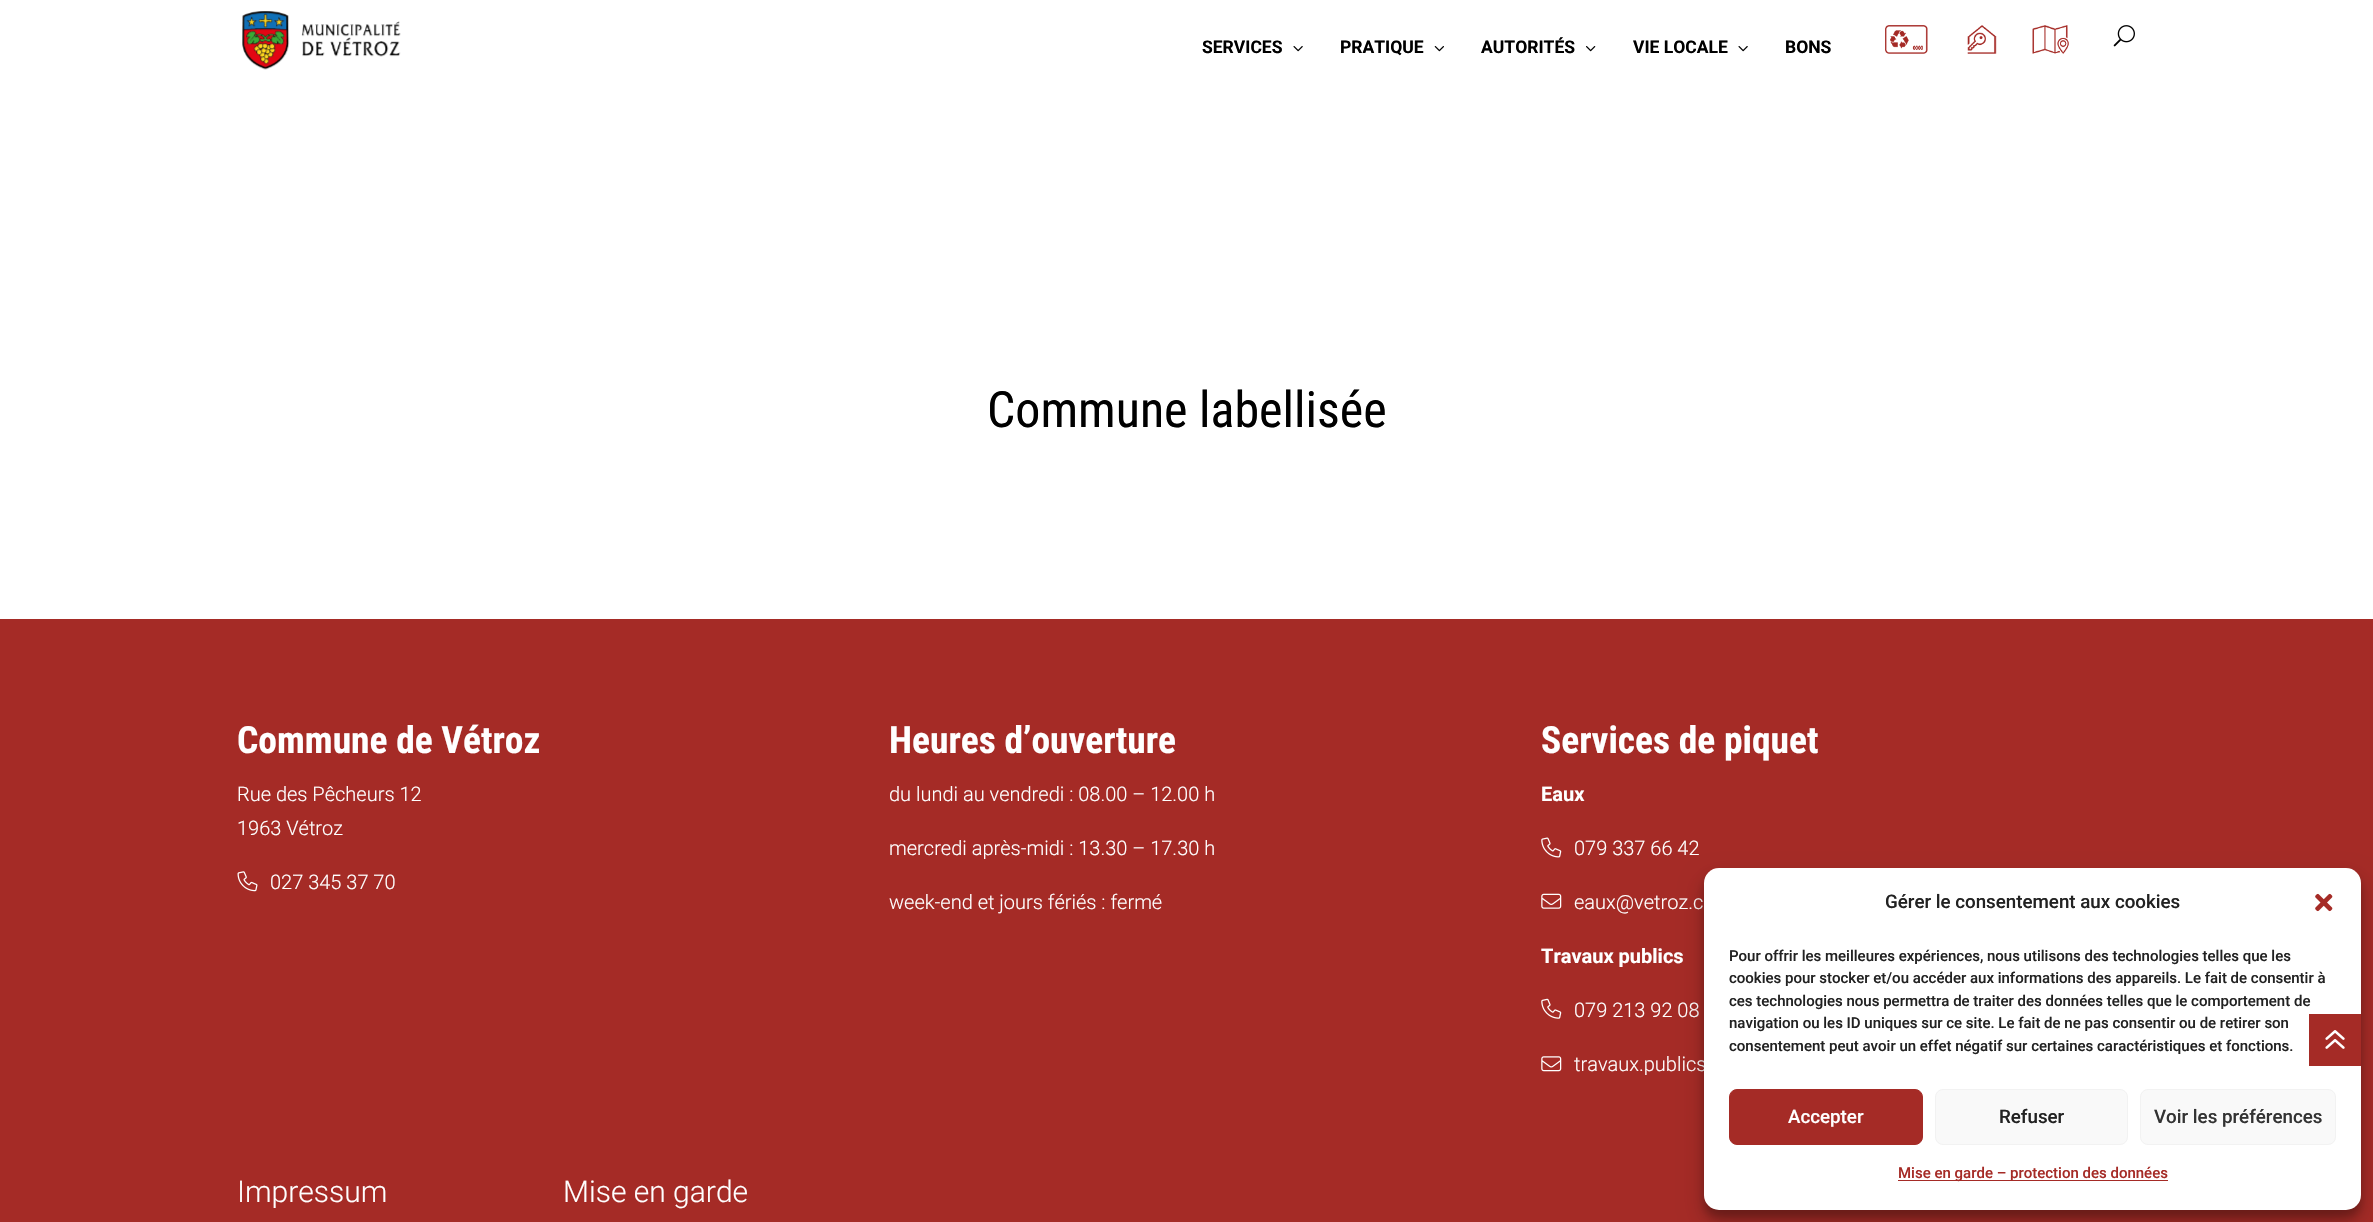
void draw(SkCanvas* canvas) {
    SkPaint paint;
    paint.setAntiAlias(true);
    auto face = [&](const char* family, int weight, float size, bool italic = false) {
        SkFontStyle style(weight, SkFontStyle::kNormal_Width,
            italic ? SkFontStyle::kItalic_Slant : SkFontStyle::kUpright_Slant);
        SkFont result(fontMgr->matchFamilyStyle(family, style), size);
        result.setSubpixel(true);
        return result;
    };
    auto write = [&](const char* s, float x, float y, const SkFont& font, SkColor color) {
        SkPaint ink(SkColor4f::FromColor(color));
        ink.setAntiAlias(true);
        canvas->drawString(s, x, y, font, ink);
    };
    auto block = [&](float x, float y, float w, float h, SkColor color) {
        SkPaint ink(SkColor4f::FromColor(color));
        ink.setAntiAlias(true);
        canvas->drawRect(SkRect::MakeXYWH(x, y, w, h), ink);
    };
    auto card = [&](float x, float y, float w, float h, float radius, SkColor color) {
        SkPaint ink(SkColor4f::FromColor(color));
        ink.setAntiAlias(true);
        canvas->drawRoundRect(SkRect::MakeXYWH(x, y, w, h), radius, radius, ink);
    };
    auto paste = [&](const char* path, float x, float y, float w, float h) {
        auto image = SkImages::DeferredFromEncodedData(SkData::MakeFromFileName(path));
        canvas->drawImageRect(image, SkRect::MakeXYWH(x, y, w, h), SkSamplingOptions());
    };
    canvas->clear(SK_ColorWHITE);
    paste("pic1.png", 242, 11, 159, 59);
    auto kFont1 = face("Roboto", 700, 17.5f);
    write("SERVICES", 1202, 53, kFont1, SK_ColorBLACK);
    paste("pic2.png", 1293, 46, 10, 6);
    write("PRATIQUE", 1340, 53, kFont1, SK_ColorBLACK);
    paste("pic3.png", 1434, 46, 10, 6);
    write("AUTORITÉS", 1481, 53, kFont1, SK_ColorBLACK);
    paste("pic4.png", 1586, 46, 10, 6);
    write("VIE LOCALE", 1633, 53, kFont1, SK_ColorBLACK);
    paste("pic2.png", 1738, 46, 10, 6);
    write("BONS", 1785, 53, kFont1, SK_ColorBLACK);
    paste("pic5.png", 1885, 25, 43, 29);
    paste("pic6.png", 1967, 25, 30, 29);
    paste("pic7.png", 2032, 25, 37, 29);
    paste("pic8.png", 2113, 25, 22, 22);
    auto kFont2 = face("Roboto Condensed", 400, 50);
    write("Commune labellisée", 987, 427, kFont2, SK_ColorBLACK);
    block(0, 619, 2373, 603, SkColorSetRGB(165, 43, 38));
    auto kFont3 = face("Roboto Condensed", 700, 37.5f);
    write("Commune de Vétroz", 237, 753, kFont3, SK_ColorWHITE);
    auto kFont4 = face("Roboto", 300, 20);
    write("Rue des Pêcheurs 12", 237, 801, kFont4, SK_ColorWHITE);
    write("1963 Vétroz", 237, 835, kFont4, SK_ColorWHITE);
    paste("pic9.png", 237, 871, 21, 21);
    write("027 345 37 70", 270, 889, kFont4, SK_ColorWHITE);
    write("Heures d’ouverture", 889, 753, kFont3, SK_ColorWHITE);
    write("du lundi au vendredi : 08.00 – 12.00 h", 889, 801, kFont4, SK_ColorWHITE);
    write("mercredi après-midi : 13.30 – 17.30 h", 889, 855, kFont4, SK_ColorWHITE);
    write("week-end et jours fériés : fermé", 889, 909, kFont4, SK_ColorWHITE);
    write("Services de piquet", 1541, 753, kFont3, SK_ColorWHITE);
    auto kFont5 = face("Roboto", 700, 20);
    write("Eaux", 1541, 801, kFont5, SK_ColorWHITE);
    paste("pic10.png", 1541, 837, 21, 21);
    write("079 337 66 42", 1574, 855, kFont4, SK_ColorWHITE);
    paste("pic11.png", 1541, 893, 21, 16);
    write("eaux@vetroz.c", 1574, 909, kFont4, SK_ColorWHITE);
    write("Travaux publics", 1541, 963, kFont5, SK_ColorWHITE);
    paste("pic12.png", 1541, 998, 21, 21);
    write("079 213 92 08", 1574, 1017, kFont4, SK_ColorWHITE);
    paste("pic13.png", 1541, 1056, 21, 16);
    write("travaux.publics", 1574, 1071, kFont4, SK_ColorWHITE);
    auto kFont6 = face("Roboto", 300, 30);
    write("Impressum", 237, 1202, kFont6, SK_ColorWHITE);
    write("Mise en garde", 563, 1202, kFont6, SK_ColorWHITE);
    paint.setColor(SkColorSetARGB(59, 0, 0, 0));
    paint.setMaskFilter(SkMaskFilter::MakeBlur(kNormal_SkBlurStyle, 4));
    canvas->drawRoundRect(SkRect::MakeXYWH(1704, 875, 657, 343), 15, 15, paint);
    paint.setMaskFilter(nullptr);
    paint.setColor(SkColorSetARGB(48, 0, 0, 0));
    paint.setMaskFilter(SkMaskFilter::MakeBlur(kNormal_SkBlurStyle, 12.5f));
    canvas->drawRoundRect(SkRect::MakeXYWH(1704, 880, 657, 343), 15, 15, paint);
    paint.setMaskFilter(nullptr);
    card(1704, 868, 657, 342, 15, SK_ColorWHITE);
    auto kFont7 = face("Roboto", 500, 18.75f);
    write("Gérer le consentement aux cookies", 1885, 908, kFont7, SkColorSetRGB(34, 34, 34));
    paste("pic14.png", 2315, 893, 18, 19);
    auto kFont8 = face("Roboto", 500, 15);
    write("Pour offrir les meilleures expériences, nous utilisons des technologies telles que les", 1729, 961, kFont8, SkColorSetRGB(34, 34, 34));
    write("cookies pour stocker et/ou accéder aux informations des appareils. Le fait de consentir à", 1729, 983, kFont8, SkColorSetRGB(34, 34, 34));
    write("ces technologies nous permettra de traiter des données telles que le comportement de", 1729, 1006, kFont8, SkColorSetRGB(34, 34, 34));
    write("navigation ou les ID uniques sur ce site. Le fait de ne pas consentir ou de retirer son", 1729, 1028, kFont8, SkColorSetRGB(34, 34, 34));
    write("consentement peut avoir un effet négatif sur certaines caractéristiques et fonctions.", 1729, 1051, kFont8, SkColorSetRGB(34, 34, 34));
    paint.setColor(SkColorSetRGB(165, 43, 38));
    canvas->drawRoundRect(SkRect::MakeXYWH(1729.5f, 1089.5f, 193, 55), 7.5f, 7.5f, paint);
    paint.setStyle(SkPaint::kStroke_Style);
    paint.setStrokeWidth(1);
    canvas->drawRoundRect(SkRect::MakeXYWH(1729.5f, 1089.5f, 193, 55), 7.5f, 7.5f, paint);
    write("Accepter", 1788, 1123, kFont7, SK_ColorWHITE);
    paint.setStyle(SkPaint::kFill_Style);
    paint.setColor(SkColorSetRGB(249, 249, 249));
    canvas->drawRoundRect(SkRect::MakeXYWH(1935.5f, 1089.5f, 192, 55), 7.5f, 7.5f, paint);
    paint.setStyle(SkPaint::kStroke_Style);
    paint.setColor(SkColorSetRGB(242, 242, 242));
    canvas->drawRoundRect(SkRect::MakeXYWH(1935.5f, 1089.5f, 192, 55), 7.5f, 7.5f, paint);
    write("Refuser", 1999, 1123, kFont7, SkColorSetRGB(34, 34, 34));
    paint.setStyle(SkPaint::kFill_Style);
    paint.setColor(SkColorSetRGB(249, 249, 249));
    canvas->drawRoundRect(SkRect::MakeXYWH(2140.5f, 1089.5f, 195, 55), 7.5f, 7.5f, paint);
    paint.setStyle(SkPaint::kStroke_Style);
    paint.setColor(SkColorSetRGB(242, 242, 242));
    canvas->drawRoundRect(SkRect::MakeXYWH(2140.5f, 1089.5f, 195, 55), 7.5f, 7.5f, paint);
    write("Voir les préférences", 2154, 1123, kFont7, SkColorSetRGB(51, 51, 51));
    block(1898, 1180, 270, 1, SkColorSetRGB(165, 43, 38));
    write("Mise en garde – protection des données", 1898, 1178, kFont8, SkColorSetRGB(165, 43, 38));
    block(2309, 1014, 52, 52, SkColorSetRGB(165, 43, 38));
    paste("pic15.png", 2325, 1030, 20, 19);
}
